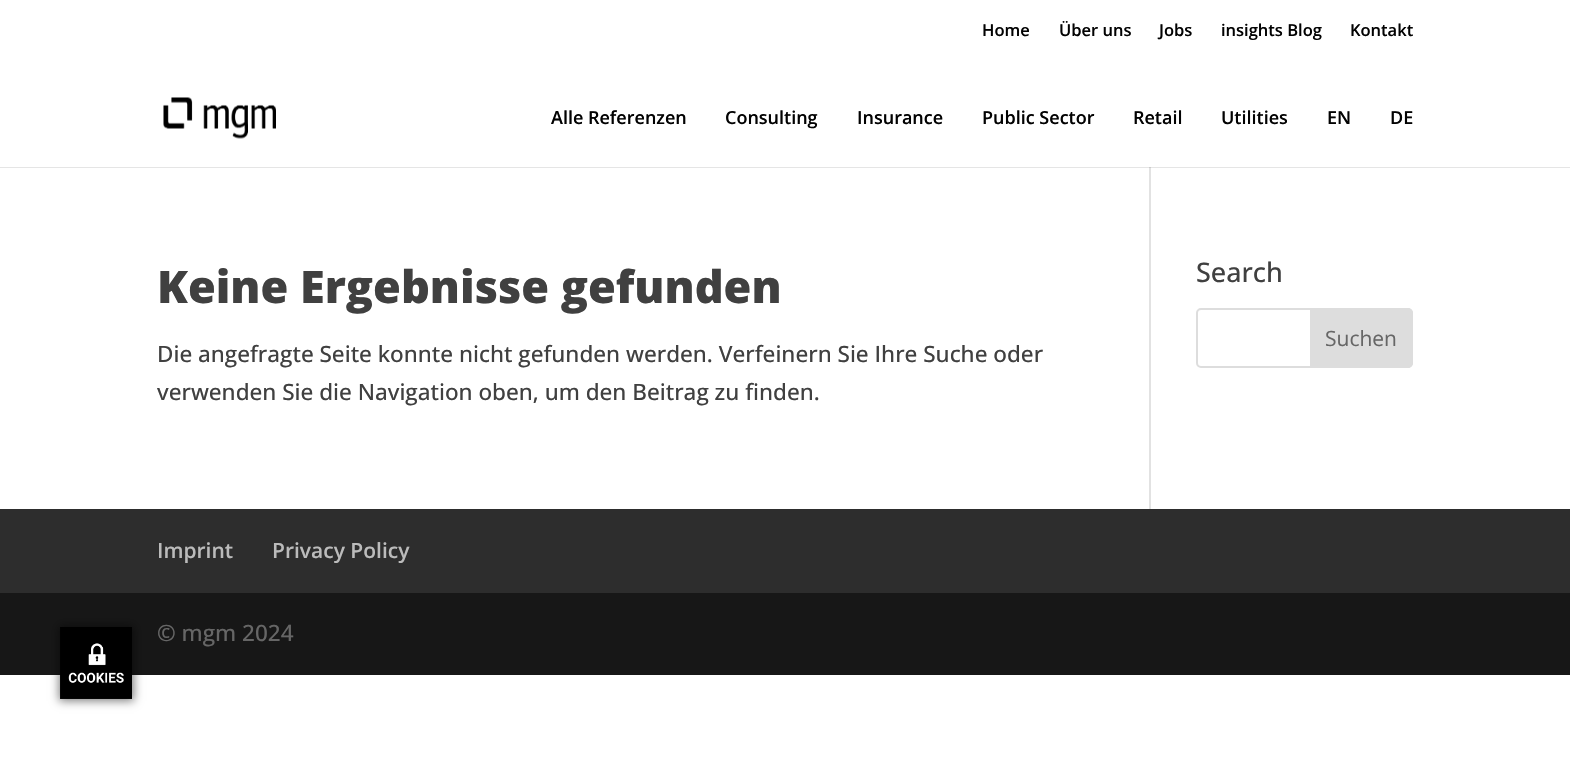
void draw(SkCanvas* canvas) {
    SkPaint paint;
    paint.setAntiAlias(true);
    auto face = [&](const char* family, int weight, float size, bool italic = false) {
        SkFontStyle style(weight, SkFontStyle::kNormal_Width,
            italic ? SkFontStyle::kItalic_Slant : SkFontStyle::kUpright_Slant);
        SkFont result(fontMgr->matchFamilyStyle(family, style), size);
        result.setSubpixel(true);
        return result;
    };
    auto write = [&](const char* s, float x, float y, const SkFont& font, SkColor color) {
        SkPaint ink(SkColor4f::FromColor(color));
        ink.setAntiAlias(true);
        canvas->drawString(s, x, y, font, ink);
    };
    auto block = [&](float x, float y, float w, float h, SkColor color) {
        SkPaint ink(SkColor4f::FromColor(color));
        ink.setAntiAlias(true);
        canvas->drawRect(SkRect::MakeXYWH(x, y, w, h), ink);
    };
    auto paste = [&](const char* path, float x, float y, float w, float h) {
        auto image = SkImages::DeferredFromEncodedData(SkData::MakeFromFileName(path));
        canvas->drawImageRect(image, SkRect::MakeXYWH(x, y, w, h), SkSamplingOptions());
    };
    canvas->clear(SK_ColorWHITE);
    auto kFont1 = face("Open Sans", 600, 16.5f);
    write("Home", 982, 36, kFont1, SkColorSetRGB(2, 2, 2));
    write("Über uns", 1059, 36, kFont1, SkColorSetRGB(2, 2, 2));
    write("Jobs", 1159, 36, kFont1, SkColorSetRGB(2, 2, 2));
    write("insights Blog", 1221, 36, kFont1, SkColorSetRGB(2, 2, 2));
    write("Kontakt", 1350, 36, kFont1, SkColorSetRGB(2, 2, 2));
    block(1149, 165, 2, 344, SkColorSetRGB(226, 226, 226));
    paint.setColor(SkColorSetARGB(26, 0, 0, 0));
    canvas->drawPath(SkPathBuilder().moveTo(0, 166).lineTo(0, 168).lineTo(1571, 168).lineTo(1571, 72).lineTo(1570, 72).lineTo(1570, 166).close().detach(), paint);
    block(0, 165, 1570, 2, SK_ColorWHITE);
    paste("pic1.png", 163, 97, 113, 42);
    auto kFont2 = face("Open Sans", 600, 18);
    write("Alle Referenzen", 551, 124, kFont2, SkColorSetRGB(2, 2, 2));
    write("Consulting", 725, 124, kFont2, SkColorSetRGB(2, 2, 2));
    write("Insurance", 857, 124, kFont2, SkColorSetRGB(2, 2, 2));
    write("Public Sector", 982, 124, kFont2, SkColorSetRGB(2, 2, 2));
    write("Retail", 1133, 124, kFont2, SkColorSetRGB(2, 2, 2));
    write("Utilities", 1221, 124, kFont2, SkColorSetRGB(2, 2, 2));
    write("EN", 1327, 124, kFont2, SkColorSetRGB(2, 2, 2));
    write("DE", 1390, 124, kFont2, SkColorSetRGB(2, 2, 2));
    auto kFont3 = face("Open Sans", 800, 45);
    write("Keine Ergebnisse gefunden", 157, 303, kFont3, SkColorSetRGB(64, 64, 64));
    auto kFont4 = face("Open Sans", 500, 22.5f);
    write("Die angefragte Seite konnte nicht gefunden werden. Verfeinern Sie Ihre Suche oder", 157, 362, kFont4, SkColorSetRGB(64, 64, 64));
    write("verwenden Sie die Navigation oben, um den Beitrag zu finden.", 157, 400, kFont4, SkColorSetRGB(64, 64, 64));
    auto kFont5 = face("Open Sans", 500, 27);
    write("Search", 1196, 282, kFont5, SkColorSetRGB(64, 64, 64));
    paint.setStyle(SkPaint::kStroke_Style);
    paint.setStrokeWidth(2);
    paint.setColor(SkColorSetRGB(221, 221, 221));
    canvas->drawRoundRect(SkRect::MakeXYWH(1197, 309, 215, 58), 4, 4, paint);
    paint.setStyle(SkPaint::kFill_Style);
    canvas->drawPath(SkPathBuilder().moveTo(1311, 309).lineTo(1408, 309).cubicTo(1410, 309, 1412, 311, 1412, 313).lineTo(1412, 363).cubicTo(1412, 365, 1410, 367, 1408, 367).lineTo(1311, 367).close().detach(), paint);
    paint.setStyle(SkPaint::kStroke_Style);
    canvas->drawPath(SkPathBuilder().moveTo(1311, 309).lineTo(1408, 309).cubicTo(1410, 309, 1412, 311, 1412, 313).lineTo(1412, 363).cubicTo(1412, 365, 1410, 367, 1408, 367).lineTo(1311, 367).close().detach(), paint);
    auto kFont6 = face("Open Sans", 400, 21);
    write("Suchen", 1325, 346, kFont6, SkColorSetRGB(102, 102, 102));
    block(0, 509, 1570, 84, SkColorSetRGB(45, 45, 45));
    auto kFont7 = face("Open Sans", 600, 21);
    write("Imprint", 157, 558, kFont7, SkColorSetRGB(187, 187, 187));
    write("Privacy Policy", 272, 558, kFont7, SkColorSetRGB(187, 187, 187));
    block(0, 593, 1570, 82, SkColorSetRGB(23, 23, 23));
    write("© mgm 2024", 157, 641, kFont4, SkColorSetRGB(102, 102, 102));
    paint.setStyle(SkPaint::kFill_Style);
    paint.setColor(SkColorSetARGB(128, 0, 0, 0));
    paint.setMaskFilter(SkMaskFilter::MakeBlur(kNormal_SkBlurStyle, 4.5f));
    canvas->drawRect(SkRect::MakeXYWH(59, 626, 75, 75), paint);
    paint.setMaskFilter(nullptr);
    paste("pic2.png", 60, 627, 72, 72);
}
